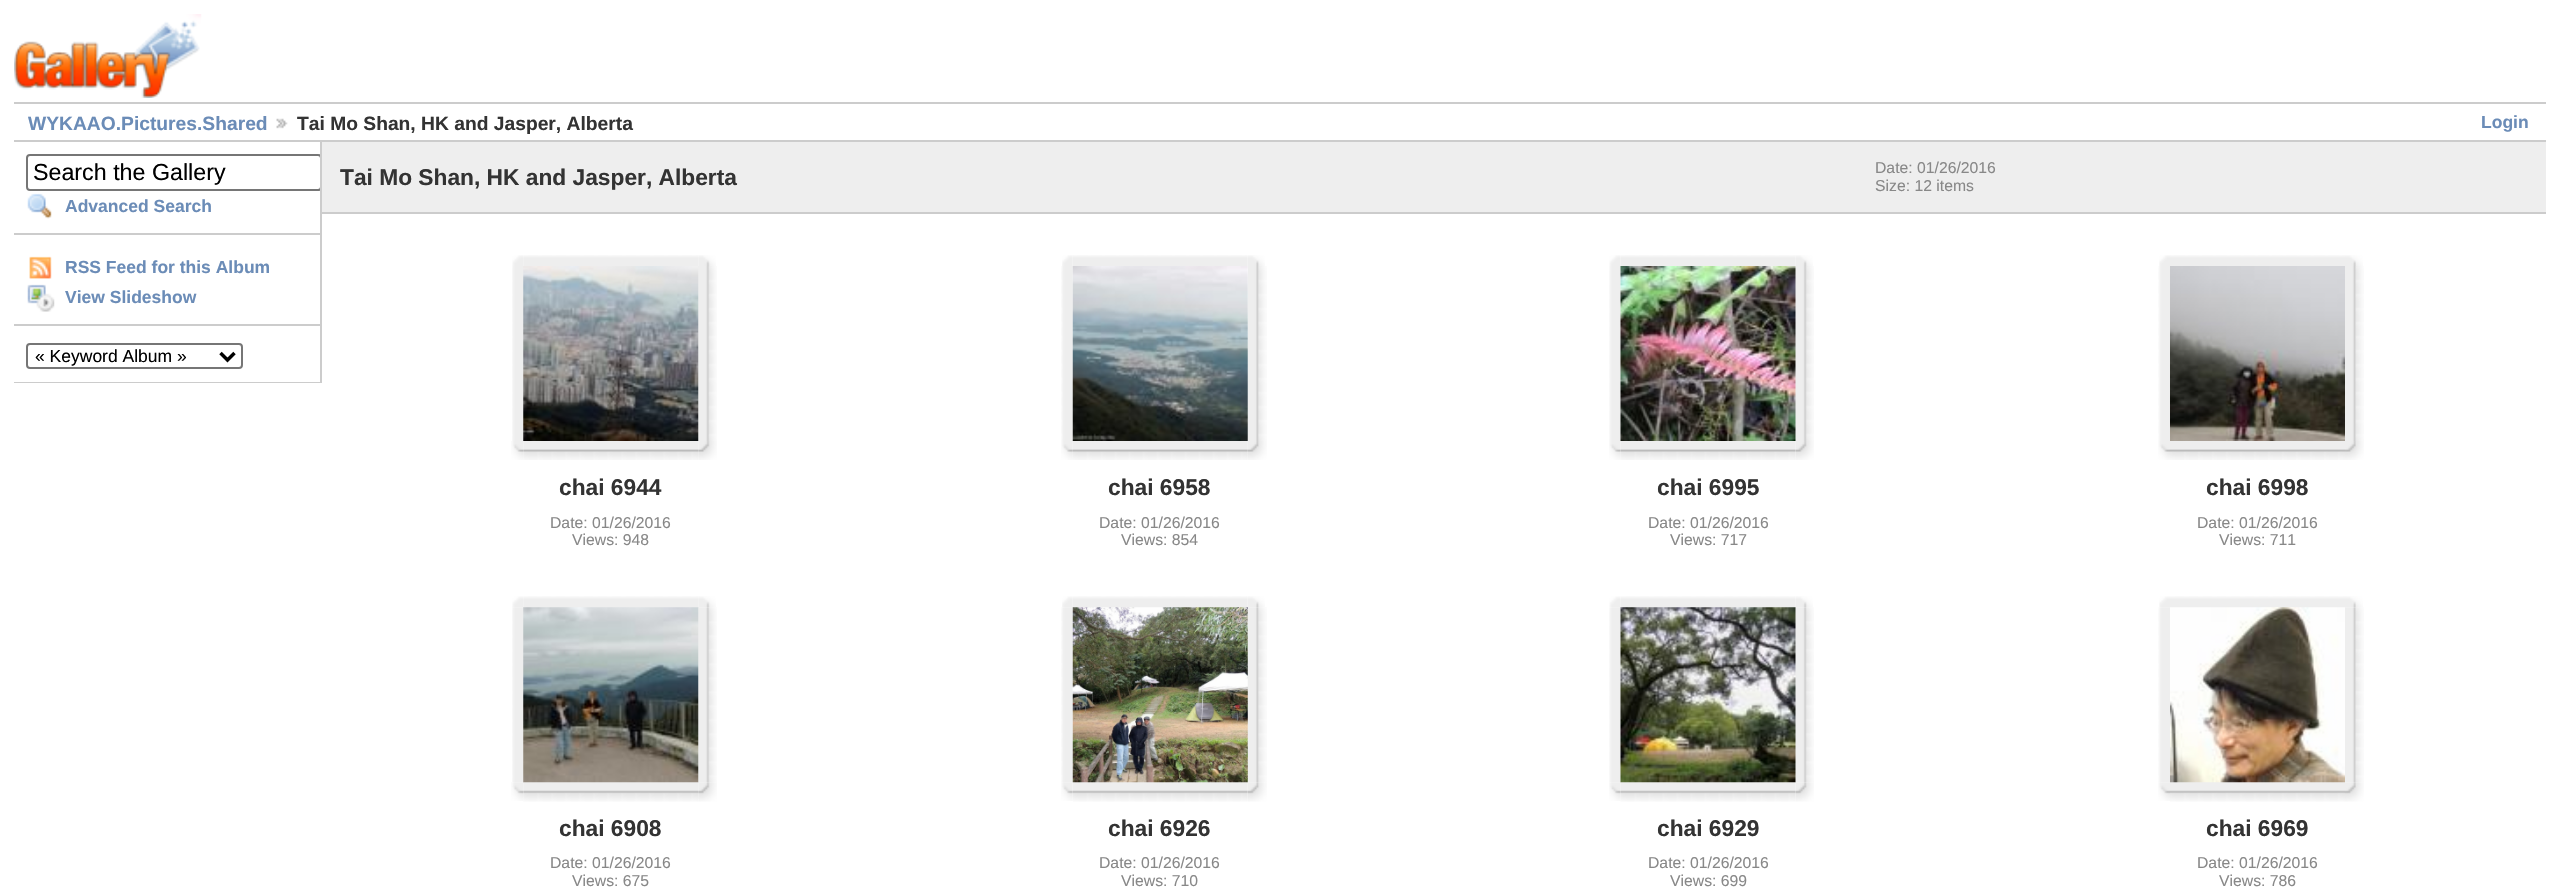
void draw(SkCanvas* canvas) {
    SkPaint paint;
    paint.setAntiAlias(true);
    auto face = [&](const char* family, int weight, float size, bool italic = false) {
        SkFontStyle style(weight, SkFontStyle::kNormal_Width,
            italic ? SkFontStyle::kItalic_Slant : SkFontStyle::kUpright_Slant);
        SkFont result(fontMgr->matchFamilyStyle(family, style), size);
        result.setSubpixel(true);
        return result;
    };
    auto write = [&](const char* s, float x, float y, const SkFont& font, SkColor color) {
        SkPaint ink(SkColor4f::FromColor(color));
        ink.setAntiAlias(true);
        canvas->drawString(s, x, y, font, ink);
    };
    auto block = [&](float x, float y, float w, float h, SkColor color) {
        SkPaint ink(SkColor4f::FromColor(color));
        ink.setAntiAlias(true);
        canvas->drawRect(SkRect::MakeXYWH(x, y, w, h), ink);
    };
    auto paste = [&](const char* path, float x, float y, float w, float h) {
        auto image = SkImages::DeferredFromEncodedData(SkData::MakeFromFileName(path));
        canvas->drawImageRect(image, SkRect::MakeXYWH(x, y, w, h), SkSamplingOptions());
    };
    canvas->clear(SK_ColorWHITE);
    paste("pic1.png", 14, 14, 188, 84);
    block(14, 102, 2532, 2, SkColorSetRGB(204, 204, 204));
    block(14, 140, 2532, 2, SkColorSetRGB(204, 204, 204));
    auto kFont1 = face("Liberation Sans", 700, 19.25f);
    write("WYKAAO.Pictures.Shared", 28, 130, kFont1, SkColorSetRGB(107, 140, 183));
    paste("pic2.png", 276, 118, 12, 11);
    write("Tai Mo Shan, HK and Jasper, Alberta", 297, 130, kFont1, SkColorSetRGB(51, 51, 51));
    auto kFont2 = face("Liberation Sans", 700, 17.5f);
    write("Login", 2481, 128, kFont2, SkColorSetRGB(107, 140, 183));
    block(320, 142, 2, 241, SkColorSetRGB(204, 204, 204));
    block(14, 233, 306, 2, SkColorSetRGB(204, 204, 204));
    canvas->save();
    canvas->clipRect(SkRect::MakeXYWH(14, 142, 306, 241));
    paint.setStyle(SkPaint::kStroke_Style);
    paint.setStrokeWidth(2);
    paint.setColor(SkColorSetRGB(118, 118, 118));
    canvas->drawRoundRect(SkRect::MakeXYWH(27, 155, 294, 35), 3, 3, paint);
    canvas->restore();
    auto kFont3 = face("Liberation Sans", 400, 23.25f);
    write("Search the Gallery", 33, 180, kFont3, SK_ColorBLACK);
    paste("pic3.png", 27, 193, 25, 26);
    write("Advanced Search", 65, 212, kFont2, SkColorSetRGB(107, 140, 183));
    block(14, 324, 306, 2, SkColorSetRGB(204, 204, 204));
    paste("pic4.png", 29, 256, 23, 23);
    write("RSS Feed for this Album", 65, 273, kFont2, SkColorSetRGB(107, 140, 183));
    paste("pic5.png", 27, 284, 28, 28);
    write("View Slideshow", 65, 303, kFont2, SkColorSetRGB(107, 140, 183));
    block(14, 382, 306, 1, SkColorSetRGB(204, 204, 204));
    canvas->drawRoundRect(SkRect::MakeXYWH(27, 344, 215, 24), 3, 3, paint);
    paint.setStrokeWidth(3.5f);
    paint.setColor(SK_ColorBLACK);
    canvas->drawPath(SkPathBuilder().moveTo(220.5f, 353).lineTo(227.5f, 360).lineTo(234.5f, 353).detach(), paint);
    auto kFont4 = face("Liberation Sans", 400, 17.5f);
    write("« Keyword Album »", 35, 362, kFont4, SK_ColorBLACK);
    block(322, 142, 2224, 70, SkColorSetRGB(238, 238, 238));
    block(322, 212, 2224, 2, SkColorSetRGB(204, 204, 204));
    auto kFont5 = face("Liberation Sans", 700, 22.75f);
    write("Tai Mo Shan, HK and Jasper, Alberta", 340, 185, kFont5, SkColorSetRGB(51, 51, 51));
    auto kFont6 = face("Liberation Sans", 400, 15.75f);
    write("Date: 01/26/2016", 1875, 173, kFont6, SkColorSetRGB(136, 136, 136));
    write("Size: 12 items", 1875, 191, kFont6, SkColorSetRGB(136, 136, 136));
    paste("pic6.png", 512, 255, 12, 11);
    paste("pic7.png", 523, 255, 176, 11);
    paste("pic8.png", 698, 255, 18, 11);
    paste("pic9.png", 512, 266, 11, 175);
    block(523, 266, 176, 175, SkColorSetRGB(238, 238, 238));
    paste("pic10.png", 523, 266, 176, 175);
    paste("pic11.png", 699, 266, 18, 175);
    paste("pic12.png", 511, 441, 13, 19);
    paste("pic13.png", 523, 441, 176, 19);
    paste("pic14.png", 698, 441, 19, 19);
    write("chai 6944", 559, 495, kFont5, SkColorSetRGB(51, 51, 51));
    write("Date: 01/26/2016", 550, 528, kFont6, SkColorSetRGB(136, 136, 136));
    write("Views: 948", 572, 545, kFont6, SkColorSetRGB(136, 136, 136));
    paste("pic15.png", 1062, 255, 11, 11);
    paste("pic16.png", 1073, 255, 175, 11);
    paste("pic17.png", 1248, 255, 17, 11);
    paste("pic18.png", 1061, 266, 12, 175);
    paste("pic19.png", 1072, 266, 176, 175);
    paste("pic20.png", 1248, 266, 19, 175);
    paste("pic21.png", 1061, 441, 12, 19);
    paste("pic22.png", 1072, 441, 176, 19);
    paste("pic23.png", 1247, 441, 20, 19);
    write("chai 6958", 1108, 495, kFont5, SkColorSetRGB(51, 51, 51));
    write("Date: 01/26/2016", 1099, 528, kFont6, SkColorSetRGB(136, 136, 136));
    write("Views: 854", 1121, 545, kFont6, SkColorSetRGB(136, 136, 136));
    paste("pic24.png", 1609, 255, 12, 11);
    paste("pic25.png", 1620, 255, 176, 11);
    paste("pic26.png", 1795, 255, 18, 11);
    paste("pic27.png", 1609, 266, 11, 175);
    block(1620, 266, 176, 175, SkColorSetRGB(238, 238, 238));
    paste("pic28.png", 1620, 266, 176, 175);
    paste("pic29.png", 1796, 266, 18, 175);
    paste("pic30.png", 1609, 441, 12, 19);
    paste("pic31.png", 1620, 441, 176, 19);
    paste("pic32.png", 1795, 441, 19, 19);
    write("chai 6995", 1657, 495, kFont5, SkColorSetRGB(51, 51, 51));
    write("Date: 01/26/2016", 1648, 528, kFont6, SkColorSetRGB(136, 136, 136));
    write("Views: 717", 1670, 545, kFont6, SkColorSetRGB(136, 136, 136));
    paste("pic33.png", 2159, 255, 11, 11);
    paste("pic34.png", 2170, 255, 175, 11);
    paste("pic35.png", 2345, 255, 18, 11);
    paste("pic36.png", 2158, 266, 12, 175);
    paste("pic37.png", 2170, 266, 175, 175);
    paste("pic38.png", 2345, 266, 19, 175);
    paste("pic39.png", 2158, 441, 12, 19);
    paste("pic40.png", 2170, 441, 175, 19);
    paste("pic41.png", 2345, 441, 19, 19);
    write("chai 6998", 2206, 495, kFont5, SkColorSetRGB(51, 51, 51));
    write("Date: 01/26/2016", 2197, 528, kFont6, SkColorSetRGB(136, 136, 136));
    write("Views: 711", 2219, 545, kFont6, SkColorSetRGB(136, 136, 136));
    paste("pic42.png", 512, 596, 12, 12);
    paste("pic43.png", 523, 596, 176, 11);
    paste("pic44.png", 698, 596, 18, 12);
    paste("pic45.png", 512, 607, 11, 176);
    block(523, 607, 176, 176, SkColorSetRGB(238, 238, 238));
    paste("pic48.png", 511, 782, 13, 19);
    paste("pic47.png", 699, 607, 18, 176);
    paste("pic49.png", 523, 783, 176, 19);
    paste("pic50.png", 698, 782, 19, 20);
    paste("pic46.png", 523, 607, 176, 176);
    write("chai 6908", 559, 836, kFont5, SkColorSetRGB(51, 51, 51));
    write("Date: 01/26/2016", 550, 868, kFont6, SkColorSetRGB(136, 136, 136));
    write("Views: 675", 572, 886, kFont6, SkColorSetRGB(136, 136, 136));
    paste("pic51.png", 1062, 596, 11, 12);
    paste("pic52.png", 1073, 596, 175, 11);
    paste("pic53.png", 1248, 596, 17, 12);
    paste("pic54.png", 1061, 607, 12, 176);
    block(1073, 607, 175, 176, SkColorSetRGB(238, 238, 238));
    paste("pic57.png", 1061, 782, 12, 19);
    paste("pic55.png", 1072, 607, 176, 176);
    paste("pic56.png", 1248, 607, 19, 176);
    paste("pic58.png", 1073, 783, 175, 19);
    paste("pic59.png", 1248, 782, 19, 20);
    write("chai 6926", 1108, 836, kFont5, SkColorSetRGB(51, 51, 51));
    write("Date: 01/26/2016", 1099, 868, kFont6, SkColorSetRGB(136, 136, 136));
    write("Views: 710", 1121, 886, kFont6, SkColorSetRGB(136, 136, 136));
    paste("pic60.png", 1609, 596, 12, 12);
    paste("pic61.png", 1620, 596, 176, 11);
    paste("pic62.png", 1795, 596, 18, 12);
    paste("pic63.png", 1609, 607, 11, 176);
    block(1620, 607, 176, 176, SkColorSetRGB(238, 238, 238));
    paste("pic66.png", 1609, 782, 12, 19);
    paste("pic65.png", 1796, 607, 18, 176);
    paste("pic67.png", 1620, 783, 176, 19);
    paste("pic68.png", 1795, 782, 19, 20);
    paste("pic64.png", 1620, 607, 176, 176);
    write("chai 6929", 1657, 836, kFont5, SkColorSetRGB(51, 51, 51));
    write("Date: 01/26/2016", 1648, 868, kFont6, SkColorSetRGB(136, 136, 136));
    write("Views: 699", 1670, 886, kFont6, SkColorSetRGB(136, 136, 136));
    paste("pic69.png", 2159, 596, 11, 12);
    paste("pic70.png", 2170, 596, 175, 11);
    paste("pic71.png", 2345, 596, 18, 12);
    paste("pic72.png", 2158, 607, 12, 176);
    block(2170, 607, 175, 176, SkColorSetRGB(238, 238, 238));
    paste("pic73.png", 2170, 607, 175, 176);
    paste("pic74.png", 2345, 607, 19, 176);
    paste("pic75.png", 2158, 782, 12, 19);
    paste("pic76.png", 2170, 783, 175, 19);
    paste("pic77.png", 2345, 782, 19, 20);
    write("chai 6969", 2206, 836, kFont5, SkColorSetRGB(51, 51, 51));
    write("Date: 01/26/2016", 2197, 868, kFont6, SkColorSetRGB(136, 136, 136));
    write("Views: 786", 2219, 886, kFont6, SkColorSetRGB(136, 136, 136));
}
